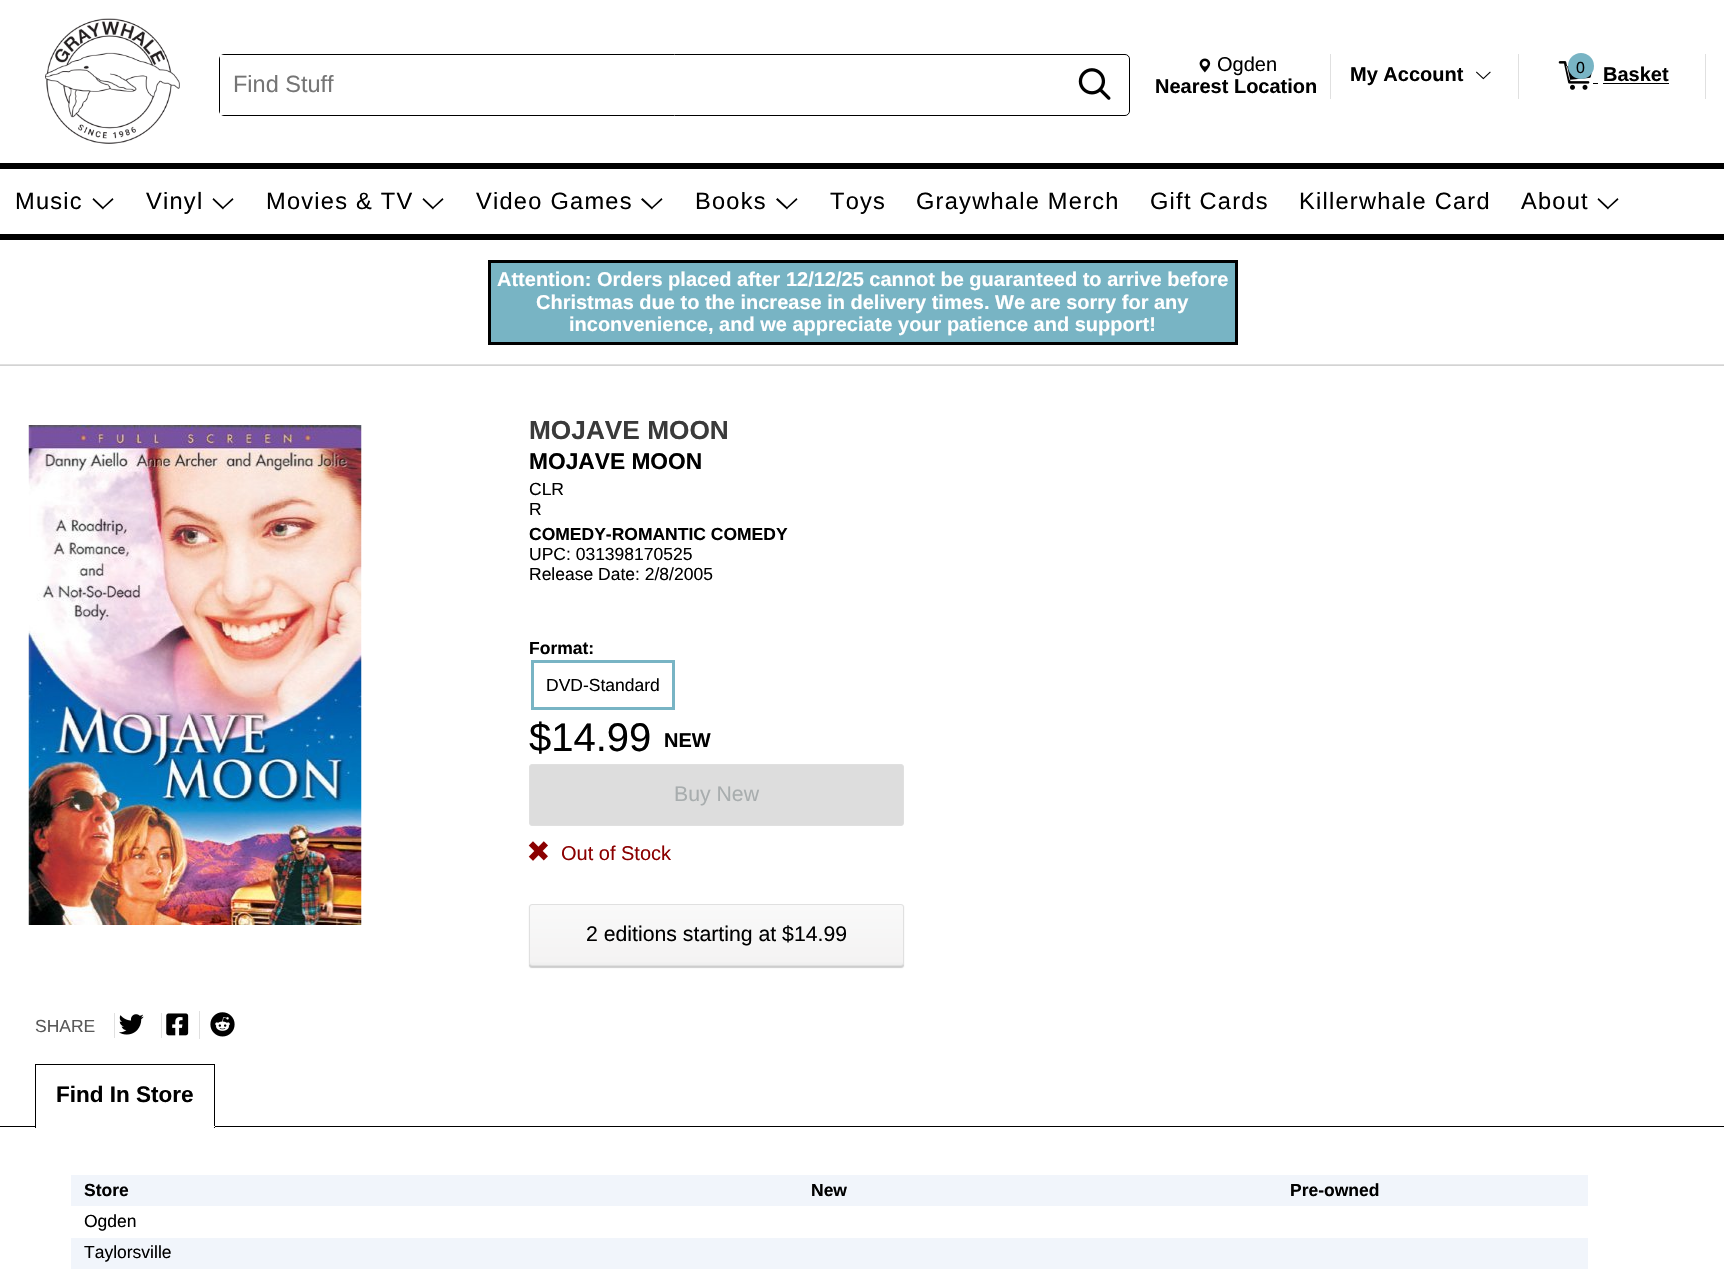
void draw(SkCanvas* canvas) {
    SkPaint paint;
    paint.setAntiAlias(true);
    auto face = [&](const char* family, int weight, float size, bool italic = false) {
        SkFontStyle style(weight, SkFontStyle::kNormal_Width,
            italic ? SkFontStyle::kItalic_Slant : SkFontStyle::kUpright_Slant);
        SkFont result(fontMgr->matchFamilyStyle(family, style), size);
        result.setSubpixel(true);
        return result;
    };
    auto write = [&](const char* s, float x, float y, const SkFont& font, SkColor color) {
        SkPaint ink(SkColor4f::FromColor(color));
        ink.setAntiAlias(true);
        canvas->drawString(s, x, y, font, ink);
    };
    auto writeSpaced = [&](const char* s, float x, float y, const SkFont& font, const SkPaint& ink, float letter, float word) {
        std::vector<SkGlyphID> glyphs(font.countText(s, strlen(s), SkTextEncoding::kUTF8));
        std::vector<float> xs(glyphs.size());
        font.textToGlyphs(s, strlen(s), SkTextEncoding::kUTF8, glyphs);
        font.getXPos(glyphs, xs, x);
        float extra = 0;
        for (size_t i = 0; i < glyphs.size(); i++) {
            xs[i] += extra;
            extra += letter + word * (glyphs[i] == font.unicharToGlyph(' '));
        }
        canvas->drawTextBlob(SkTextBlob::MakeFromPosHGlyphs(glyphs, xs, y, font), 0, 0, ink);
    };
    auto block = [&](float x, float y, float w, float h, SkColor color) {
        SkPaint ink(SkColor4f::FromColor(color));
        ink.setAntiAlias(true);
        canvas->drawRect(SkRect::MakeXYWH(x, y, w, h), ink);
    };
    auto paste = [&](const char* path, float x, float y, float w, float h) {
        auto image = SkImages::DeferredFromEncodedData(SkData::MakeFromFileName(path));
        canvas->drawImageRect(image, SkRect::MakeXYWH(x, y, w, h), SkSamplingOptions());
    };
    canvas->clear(SK_ColorWHITE);
    paste("pic1.png", 45, 18, 135, 126);
    paint.setStyle(SkPaint::kStroke_Style);
    paint.setStrokeWidth(1);
    paint.setColor(SK_ColorBLACK);
    canvas->drawRoundRect(SkRect::MakeXYWH(219.5f, 54.5f, 910, 61), 4.5f, 4.5f, paint);
    block(220, 55, 4, 60, SK_ColorWHITE);
    auto kFont1 = face("Liberation Sans", 400, 23.5f);
    write("Find Stuff", 233, 92, kFont1, SkColorSetRGB(117, 117, 117));
    paste("pic2.png", 1078, 68, 33, 32);
    block(1330, 54, 1, 45, SkColorSetRGB(224, 224, 224));
    paste("pic3.png", 1199, 58, 12, 15);
    auto kFont2 = face("Liberation Sans", 400, 20);
    write("Ogden", 1217, 71, kFont2, SK_ColorBLACK);
    auto kFont3 = face("Liberation Sans", 700, 20);
    write("Nearest Location", 1155, 93, kFont3, SK_ColorBLACK);
    block(1518, 54, 1, 45, SkColorSetRGB(224, 224, 224));
    write("My Account", 1350, 81, kFont3, SK_ColorBLACK);
    paste("pic4.png", 1476, 71, 15, 9);
    block(1705, 54, 1, 45, SkColorSetRGB(224, 224, 224));
    paste("pic5.png", 1558, 61, 34, 29);
    paint.setStyle(SkPaint::kFill_Style);
    paint.setColor(SkColorSetRGB(120, 180, 196));
    canvas->drawCircle(1581, 66, 13, paint);
    auto kFont4 = face("Liberation Sans", 400, 16);
    write("0", 1576, 73, kFont4, SK_ColorBLACK);
    write("Basket", 1603, 81, kFont3, SK_ColorBLACK);
    block(1603, 83, 66, 1, SK_ColorBLACK);
    block(1593, 83, 5, 1, SK_ColorBLACK);
    block(0, 163, 1724, 6, SK_ColorBLACK);
    block(0, 234, 1724, 6, SK_ColorBLACK);
    auto kFont5 = face("Liberation Sans", 400, 23.6f);
    paint.setColor(SK_ColorBLACK);
    writeSpaced("Music", 15, 209, kFont5, paint, 1.25f, 0);
    canvas->drawPath(SkPathBuilder().moveTo(104, 208).lineTo(113.5f, 199.5f).lineTo(112.5f, 198).lineTo(103, 207).lineTo(93.5f, 198).lineTo(92.5f, 199.5f).lineTo(103, 209.5f).close().detach(), paint);
    writeSpaced("Vinyl", 146, 209, kFont5, paint, 1.25f, 0);
    canvas->drawPath(SkPathBuilder().moveTo(224, 208).lineTo(233.5f, 199.5f).lineTo(232.5f, 198).lineTo(223, 207).lineTo(213.5f, 198).lineTo(212.5f, 199.5f).lineTo(223, 209.5f).close().detach(), paint);
    writeSpaced("Movies & TV", 266, 209, kFont5, paint, 1.25f, 0);
    canvas->drawPath(SkPathBuilder().moveTo(434, 208).lineTo(443.5f, 199.5f).lineTo(442.5f, 198).lineTo(433, 207).lineTo(423.5f, 198).lineTo(422.5f, 199.5f).lineTo(433, 209.5f).close().detach(), paint);
    writeSpaced("Video Games", 476, 209, kFont5, paint, 1.25f, 0);
    canvas->drawPath(SkPathBuilder().moveTo(653, 208).lineTo(662.5f, 199.5f).lineTo(661.5f, 198).lineTo(652, 207).lineTo(642.5f, 198).lineTo(641, 199.5f).lineTo(652, 209.5f).close().detach(), paint);
    writeSpaced("Books", 695, 209, kFont5, paint, 1.25f, 0);
    canvas->drawPath(SkPathBuilder().moveTo(788, 208).lineTo(797.5f, 199.5f).lineTo(796.5f, 198).lineTo(787, 207).lineTo(777.5f, 198).lineTo(776, 199.5f).lineTo(787, 209.5f).close().detach(), paint);
    writeSpaced("Toys", 830, 209, kFont5, paint, 1.25f, 0);
    writeSpaced("Graywhale Merch", 916, 209, kFont5, paint, 1.25f, 0);
    writeSpaced("Gift Cards", 1150, 209, kFont5, paint, 1.25f, 0);
    writeSpaced("Killerwhale Card", 1299, 209, kFont5, paint, 1.25f, 0);
    writeSpaced("About", 1521, 209, kFont5, paint, 1.25f, 0);
    canvas->drawPath(SkPathBuilder().moveTo(1609, 208).lineTo(1618.5f, 199.5f).lineTo(1617.5f, 198).lineTo(1608, 207).lineTo(1598.5f, 198).lineTo(1597.5f, 199.5f).lineTo(1608, 209.5f).close().detach(), paint);
    block(0, 364, 1724, 1, SkColorSetRGB(224, 224, 224));
    paint.setColor(SkColorSetRGB(120, 180, 196));
    canvas->drawRect(SkRect::MakeXYWH(489.5f, 261.5f, 747, 82), paint);
    paint.setStyle(SkPaint::kStroke_Style);
    paint.setStrokeWidth(3);
    paint.setColor(SK_ColorBLACK);
    canvas->drawRect(SkRect::MakeXYWH(489.5f, 261.5f, 747, 82), paint);
    write("Attention: Orders placed after 12/12/25 cannot be guaranteed to arrive before", 497, 286, kFont3, SK_ColorWHITE);
    write("Christmas due to the increase in delivery times. We are sorry for any", 536, 309, kFont3, SK_ColorWHITE);
    write("inconvenience, and we appreciate your patience and support!", 569, 331, kFont3, SK_ColorWHITE);
    block(0, 365, 1724, 1, SkColorSetRGB(211, 211, 211));
    paste("pic6.png", 28, 425, 334, 500);
    auto kFont6 = face("Liberation Sans", 700, 26.25f);
    write("MOJAVE MOON", 529, 439, kFont6, SkColorSetRGB(58, 58, 58));
    auto kFont7 = face("Liberation Sans", 700, 22.75f);
    write("MOJAVE MOON", 529, 469, kFont7, SK_ColorBLACK);
    auto kFont8 = face("Liberation Sans", 400, 17.5f);
    write("CLR", 529, 495, kFont8, SK_ColorBLACK);
    write("R", 529, 515, kFont8, SK_ColorBLACK);
    auto kFont9 = face("Liberation Sans", 700, 17.5f);
    write("COMEDY-ROMANTIC COMEDY", 529, 540, kFont9, SK_ColorBLACK);
    write("UPC: 031398170525", 529, 560, kFont8, SK_ColorBLACK);
    write("Release Date: 2/8/2005", 529, 580, kFont8, SK_ColorBLACK);
    write("Format:", 529, 654, kFont9, SK_ColorBLACK);
    paint.setColor(SkColorSetRGB(120, 180, 196));
    canvas->drawRect(SkRect::MakeXYWH(532.5f, 661.5f, 141, 47), paint);
    write("DVD-Standard", 546, 691, kFont8, SK_ColorBLACK);
    auto kFont10 = face("Liberation Sans", 400, 40);
    write("$14.99", 529, 751, kFont10, SK_ColorBLACK);
    write("NEW", 664, 747, kFont3, SK_ColorBLACK);
    paint.setStyle(SkPaint::kFill_Style);
    paint.setColor(SkColorSetRGB(221, 221, 221));
    canvas->drawRoundRect(SkRect::MakeXYWH(529.5f, 764.5f, 374, 61), 2.5f, 2.5f, paint);
    paint.setStyle(SkPaint::kStroke_Style);
    paint.setStrokeWidth(1);
    paint.setColor(SkColorSetRGB(224, 224, 224));
    canvas->drawRoundRect(SkRect::MakeXYWH(529.5f, 764.5f, 374, 61), 2.5f, 2.5f, paint);
    auto kFont11 = face("Liberation Sans", 400, 21.25f);
    write("Buy New", 674, 801, kFont11, SkColorSetRGB(168, 173, 174));
    paste("pic7.png", 528, 841, 20, 20);
    write("Out of Stock", 561, 860, kFont2, SkColorSetRGB(139, 0, 0));
    paint.setStyle(SkPaint::kFill_Style);
    paint.setColor(SkColorSetRGB(205, 205, 205));
    paint.setMaskFilter(SkMaskFilter::MakeBlur(kNormal_SkBlurStyle, 0.5f));
    canvas->drawRoundRect(SkRect::MakeXYWH(529, 905, 375, 63), 3, 3, paint);
    paint.setMaskFilter(nullptr);
    canvas->save();
    canvas->clipPath(SkPathBuilder().moveTo(532, 904).lineTo(901, 904).cubicTo(902.5f, 904, 904, 905.5f, 904, 907).lineTo(904, 963).cubicTo(904, 964.5f, 902.5f, 966, 901, 966).lineTo(532, 966).cubicTo(530.5f, 966, 529, 964.5f, 529, 963).lineTo(529, 907).cubicTo(529, 905.5f, 530.5f, 904, 532, 904).close().detach(), true);
    {
        const SkColor colors[] = {SkColorSetRGB(249, 249, 249), SkColorSetRGB(244, 243, 243), SkColorSetRGB(238, 238, 238)};
        const float stops[] = {0, 0.94f, 1};
        const SkPoint ends[] = {{716, 905}, {716, 965}};
        paint.setShader(SkGradientShader::MakeLinear(ends, colors, stops, 3, SkTileMode::kClamp));
        paint.setAlpha(255);
    }
    canvas->drawRect(SkRect::MakeXYWH(529, 905, 375, 60), paint);
    canvas->restore();
    paint.setStyle(SkPaint::kStroke_Style);
    paint.setShader(nullptr);
    paint.setColor(SkColorSetRGB(224, 224, 224));
    canvas->drawRoundRect(SkRect::MakeXYWH(529.5f, 904.5f, 374, 61), 2.5f, 2.5f, paint);
    write("2 editions starting at $14.99", 586, 941, kFont11, SK_ColorBLACK);
    write("SHARE", 35, 1032, kFont8, SkColorSetRGB(89, 89, 89));
    block(114, 1013, 1, 25, SkColorSetRGB(224, 224, 224));
    paste("pic8.png", 119, 1014, 25, 21);
    block(161, 1013, 1, 25, SkColorSetRGB(224, 224, 224));
    paste("pic9.png", 166, 1013, 23, 23);
    block(199, 1011, 1, 28, SkColorSetRGB(224, 224, 224));
    paste("pic10.png", 210, 1012, 25, 25);
    block(0, 1126, 1724, 1, SK_ColorBLACK);
    block(36, 1126, 178, 1, SK_ColorWHITE);
    block(35, 1064, 180, 1, SK_ColorBLACK);
    block(214, 1064, 1, 64, SK_ColorBLACK);
    block(35, 1126, 180, 1, SK_ColorWHITE);
    block(35, 1064, 1, 64, SK_ColorBLACK);
    auto kFont12 = face("Liberation Sans", 700, 22.5f);
    write("Find In Store", 56, 1102, kFont12, SK_ColorBLACK);
    block(71, 1175, 1517, 31, SkColorSetRGB(241, 245, 251));
    write("Store", 84, 1196, kFont9, SK_ColorBLACK);
    write("New", 811, 1196, kFont9, SK_ColorBLACK);
    write("Pre-owned", 1290, 1196, kFont9, SK_ColorBLACK);
    write("Ogden", 84, 1227, kFont8, SK_ColorBLACK);
    block(71, 1238, 1517, 31, SkColorSetRGB(241, 245, 251));
    write("Taylorsville", 84, 1258, kFont8, SK_ColorBLACK);
}
